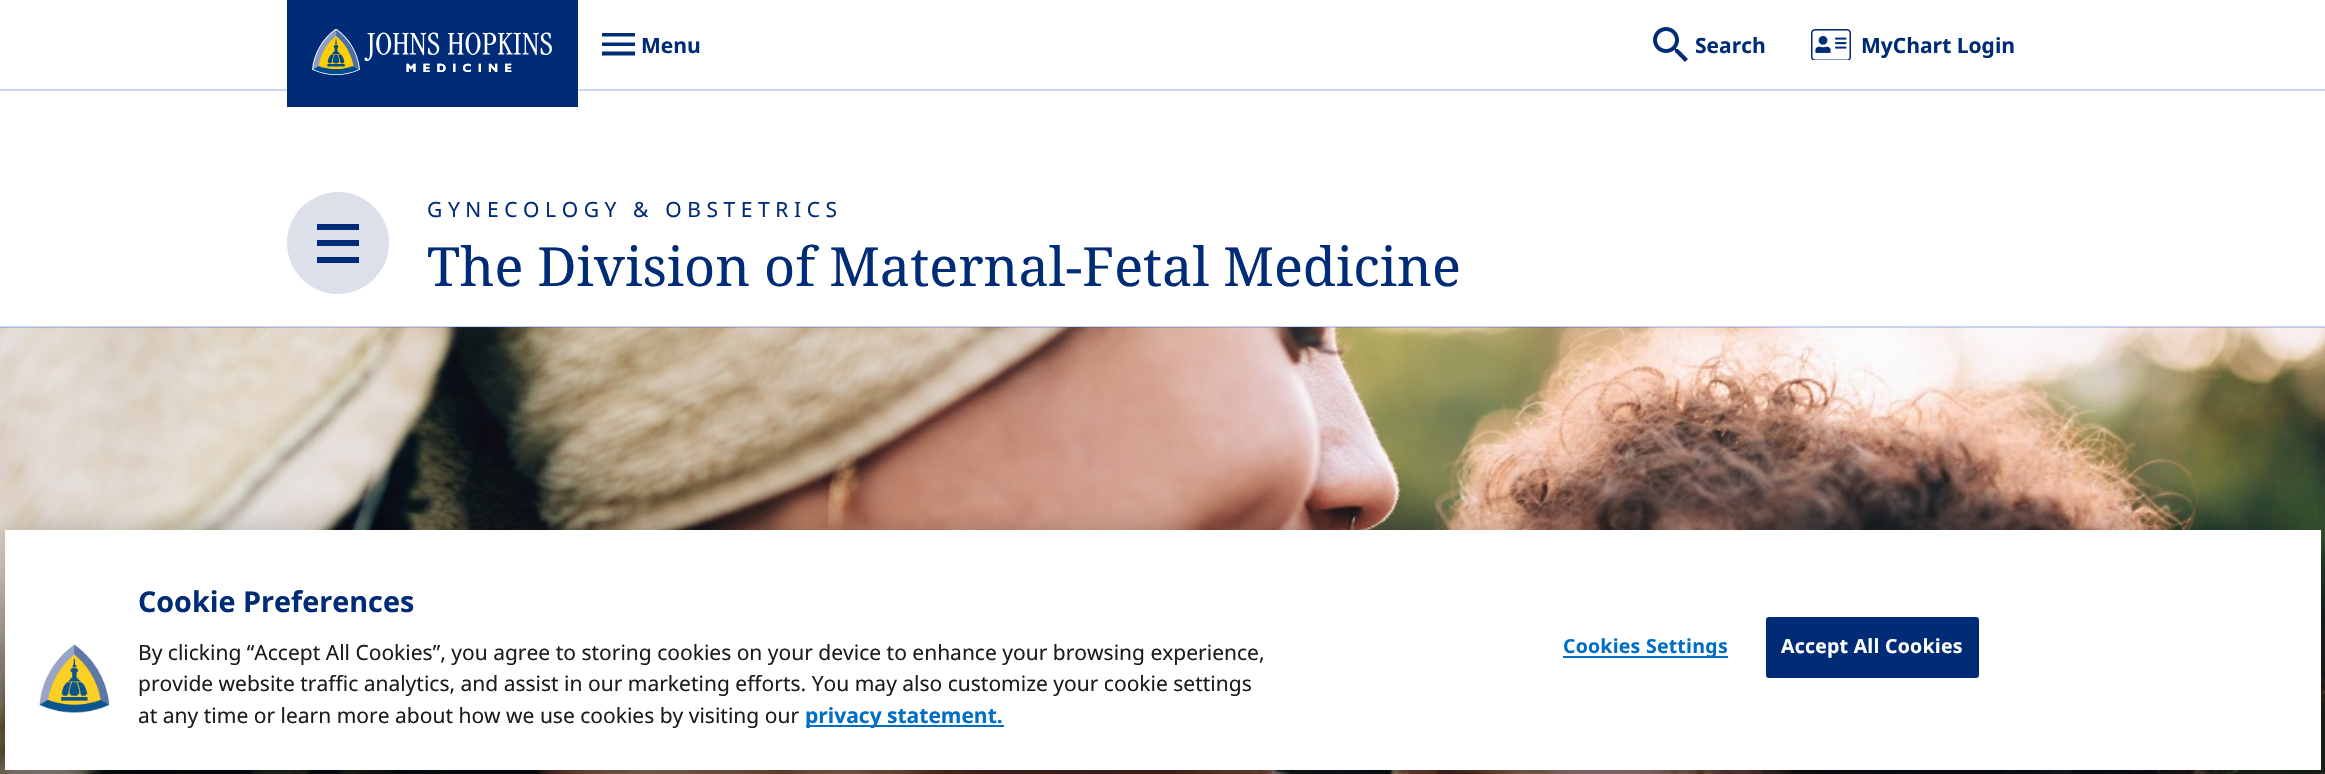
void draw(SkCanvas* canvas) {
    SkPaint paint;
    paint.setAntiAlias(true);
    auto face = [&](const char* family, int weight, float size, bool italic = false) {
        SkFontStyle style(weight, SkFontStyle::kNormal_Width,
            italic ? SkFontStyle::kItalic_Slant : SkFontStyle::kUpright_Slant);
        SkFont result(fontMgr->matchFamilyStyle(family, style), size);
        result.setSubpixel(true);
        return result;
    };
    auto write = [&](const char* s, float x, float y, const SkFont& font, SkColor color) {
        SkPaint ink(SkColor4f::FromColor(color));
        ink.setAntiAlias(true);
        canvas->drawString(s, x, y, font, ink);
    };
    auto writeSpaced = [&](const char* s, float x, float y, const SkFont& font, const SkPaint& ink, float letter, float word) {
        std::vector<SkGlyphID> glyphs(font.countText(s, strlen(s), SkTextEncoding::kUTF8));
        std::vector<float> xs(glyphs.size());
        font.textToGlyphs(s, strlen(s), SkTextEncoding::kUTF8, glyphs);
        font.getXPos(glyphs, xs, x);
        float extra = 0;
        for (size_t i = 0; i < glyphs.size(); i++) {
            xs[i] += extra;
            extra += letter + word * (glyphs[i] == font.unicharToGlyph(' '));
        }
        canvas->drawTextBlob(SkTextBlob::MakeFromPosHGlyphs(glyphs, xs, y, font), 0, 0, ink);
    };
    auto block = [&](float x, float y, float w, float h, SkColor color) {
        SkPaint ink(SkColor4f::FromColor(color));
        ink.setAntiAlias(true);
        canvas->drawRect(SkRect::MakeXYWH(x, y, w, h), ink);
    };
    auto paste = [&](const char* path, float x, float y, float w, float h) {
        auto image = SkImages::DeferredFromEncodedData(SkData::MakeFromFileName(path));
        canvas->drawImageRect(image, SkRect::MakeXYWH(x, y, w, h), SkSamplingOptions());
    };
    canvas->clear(SK_ColorWHITE);
    block(0, 89, 2325, 2, SkColorSetRGB(204, 213, 244));
    block(287, 0, 291, 107, SkColorSetRGB(0, 44, 119));
    paste("pic1.png", 312, 29, 240, 46);
    canvas->save();
    canvas->clipRect(SkRect::MakeXYWH(602, 33, 33, 23));
    paint.setColor(SkColorSetRGB(0, 44, 119));
    canvas->drawPath(SkPathBuilder().moveTo(601.5f, 55.5f).lineTo(635, 55.5f).lineTo(635, 51.5f).lineTo(601.5f, 51.5f).close().moveTo(601.5f, 46).lineTo(635, 46).lineTo(635, 42.5f).lineTo(601.5f, 42.5f).close().moveTo(601.5f, 33).lineTo(601.5f, 36.5f).lineTo(635, 36.5f).lineTo(635, 33).close().detach(), paint);
    canvas->restore();
    auto kFont1 = face("Noto Sans", 700, 21);
    write("Menu", 641, 53, kFont1, SkColorSetRGB(0, 44, 119));
    paste("pic2.png", 1653, 27, 35, 35);
    write("Search", 1695, 53, kFont1, SkColorSetRGB(0, 44, 119));
    paste("pic3.png", 1811, 29, 40, 31);
    write("MyChart Login", 1861, 53, kFont1, SkColorSetRGB(0, 44, 119));
    paste("pic4.png", 0, 327, 2325, 447);
    block(0, 326, 2325, 2, SkColorSetARGB(51, 0, 44, 199));
    paint.setColor(SkColorSetRGB(219, 224, 234));
    canvas->drawCircle(338, 243, 51, paint);
    block(317, 224, 42, 6, SkColorSetRGB(0, 44, 119));
    block(317, 240, 42, 6, SkColorSetRGB(0, 44, 119));
    block(317, 257, 42, 6, SkColorSetRGB(0, 44, 119));
    auto kFont2 = face("Noto Sans", 400, 21);
    paint.setColor(SkColorSetRGB(0, 44, 119));
    writeSpaced("GYNECOLOGY & OBSTETRICS", 427, 217, kFont2, paint, 5.6f, 0);
    auto kFont3 = face("Noto Serif", 400, 54);
    write("The Division of Maternal-Fetal Medicine", 427, 286, kFont3, SkColorSetRGB(0, 44, 119));
    paint.setColor(SkColorSetARGB(51, 0, 0, 0));
    paint.setMaskFilter(SkMaskFilter::MakeBlur(kNormal_SkBlurStyle, 13.5f));
    canvas->drawRect(SkRect::MakeXYWH(5, 530, 2316, 240), paint);
    paint.setMaskFilter(nullptr);
    block(5, 530, 2316, 240, SK_ColorWHITE);
    paste("pic5.png", 39, 644, 71, 69);
    auto kFont4 = face("Noto Sans", 700, 28.75f);
    write("Cookie Preferences", 138, 612, kFont4, SkColorSetRGB(0, 44, 119));
    write("By clicking “Accept All Cookies”, you agree to storing cookies on your device to enhance your browsing experience,", 138, 660, kFont2, SkColorSetRGB(28, 28, 28));
    write("provide website traffic analytics, and assist in our marketing efforts. You may also customize your cookie settings", 138, 691, kFont2, SkColorSetRGB(28, 28, 28));
    write("at any time or learn more about how we use cookies by visiting our", 138, 723, kFont2, SkColorSetRGB(28, 28, 28));
    block(806, 725, 198, 2, SkColorSetRGB(0, 109, 199));
    write("privacy statement.", 805, 723, kFont1, SkColorSetRGB(0, 109, 199));
    block(1563, 656, 165, 2, SkColorSetRGB(0, 109, 199));
    auto kFont5 = face("Noto Sans", 700, 19.5f);
    paint.setColor(SkColorSetRGB(0, 109, 199));
    writeSpaced("Cookies Settings", 1563, 653, kFont5, paint, 0.25f, 0);
    paint.setColor(SkColorSetRGB(0, 44, 119));
    canvas->drawRoundRect(SkRect::MakeXYWH(1767, 618, 211, 59), 2, 2, paint);
    paint.setStyle(SkPaint::kStroke_Style);
    paint.setStrokeWidth(2);
    canvas->drawRoundRect(SkRect::MakeXYWH(1767, 618, 211, 59), 2, 2, paint);
    paint.setStyle(SkPaint::kFill_Style);
    paint.setColor(SK_ColorWHITE);
    writeSpaced("Accept All Cookies", 1781, 653, kFont5, paint, 0.25f, 0);
}
